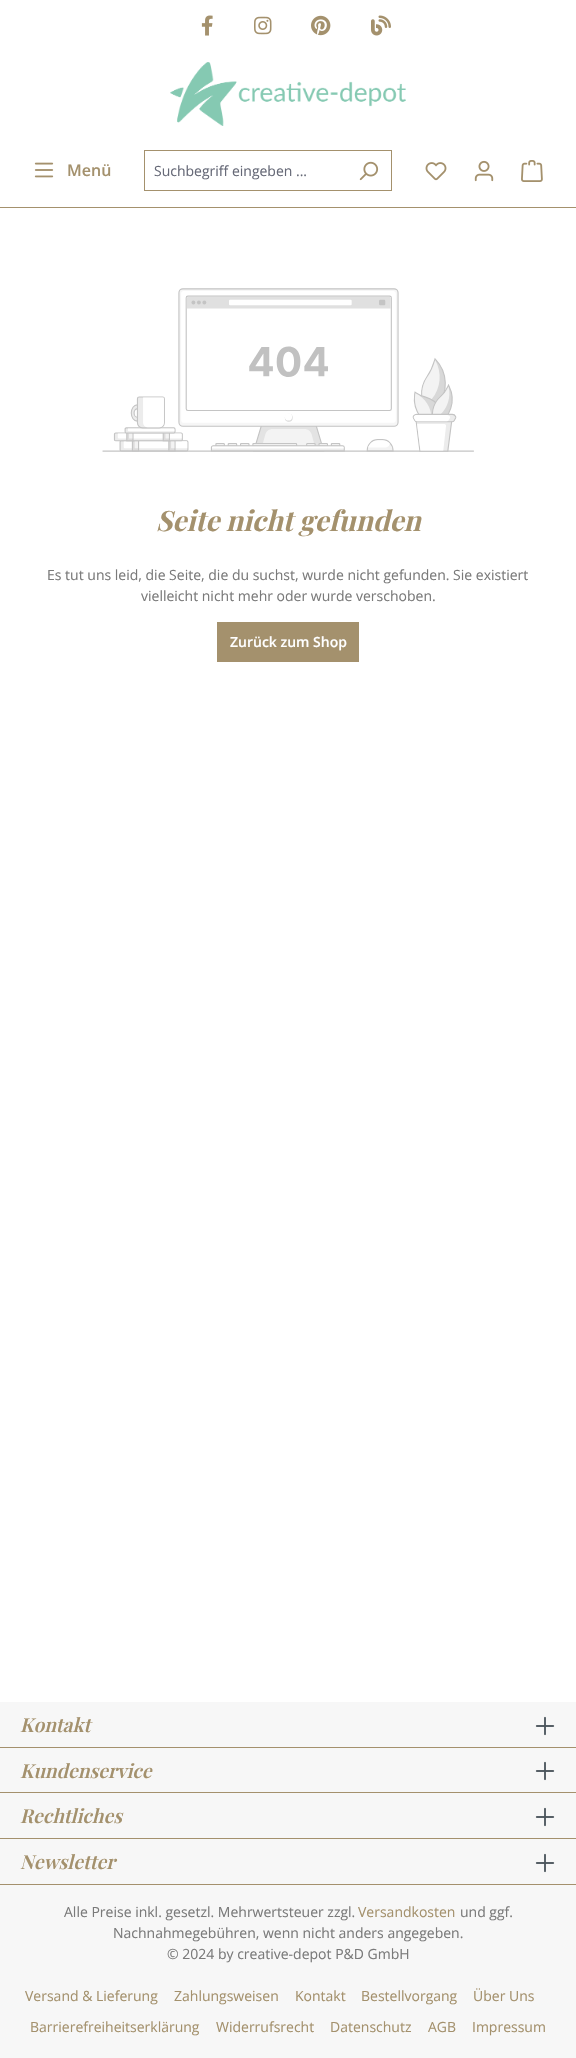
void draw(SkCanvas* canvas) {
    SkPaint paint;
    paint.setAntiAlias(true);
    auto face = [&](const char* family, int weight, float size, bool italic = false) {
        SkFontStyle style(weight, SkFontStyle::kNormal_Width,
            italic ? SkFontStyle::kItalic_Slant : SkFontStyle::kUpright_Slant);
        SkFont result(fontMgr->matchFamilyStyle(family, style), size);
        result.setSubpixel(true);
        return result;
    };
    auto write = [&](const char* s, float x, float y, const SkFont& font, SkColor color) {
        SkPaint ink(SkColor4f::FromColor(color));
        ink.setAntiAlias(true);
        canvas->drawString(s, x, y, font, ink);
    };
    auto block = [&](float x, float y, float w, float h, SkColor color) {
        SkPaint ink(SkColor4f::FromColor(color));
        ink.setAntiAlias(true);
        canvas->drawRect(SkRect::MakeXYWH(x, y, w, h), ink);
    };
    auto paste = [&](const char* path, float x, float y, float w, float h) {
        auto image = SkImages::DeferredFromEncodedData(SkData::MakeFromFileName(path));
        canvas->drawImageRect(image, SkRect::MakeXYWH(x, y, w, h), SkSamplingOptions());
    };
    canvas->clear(SK_ColorWHITE);
    block(0, 207, 576, 1, SkColorSetRGB(164, 145, 109));
    paste("pic1.png", 201, 15, 12, 21);
    paste("pic2.png", 254, 16, 18, 19);
    paste("pic3.png", 311, 15, 20, 21);
    paste("pic4.png", 371, 15, 20, 21);
    paste("pic5.png", 170, 62, 236, 64);
    paste("pic6.png", 34, 162, 20, 16);
    auto kFont1 = face("Open Sans", 600, 16);
    write("Menü", 67, 176, kFont1, SkColorSetRGB(164, 145, 109));
    block(144, 150, 248, 1, SkColorSetRGB(164, 145, 109));
    block(144, 190, 202, 1, SkColorSetRGB(164, 145, 109));
    block(144, 150, 1, 41, SkColorSetRGB(164, 145, 109));
    auto kFont2 = face("Open Sans", 400, 14);
    write("Suchbegriff eingeben ...", 154, 176, kFont2, SkColorSetRGB(102, 105, 119));
    block(391, 150, 1, 41, SkColorSetRGB(164, 145, 109));
    block(345, 190, 47, 1, SkColorSetRGB(164, 145, 109));
    paste("pic7.png", 359, 161, 20, 20);
    paste("pic8.png", 425, 162, 22, 19);
    paste("pic9.png", 474, 160, 20, 22);
    paste("pic10.png", 521, 160, 22, 22);
    paste("pic11.png", 102, 288, 372, 164);
    auto kFont3 = face("Playfair Display", 700, 28, true);
    write("Seite nicht gefunden", 156, 531, kFont3, SkColorSetRGB(164, 145, 109));
    write("Es tut uns leid, die Seite, die du suchst, wurde nicht gefunden. Sie existiert", 47, 580, kFont2, SkColorSetRGB(122, 122, 122));
    write("vielleicht nicht mehr oder wurde verschoben.", 141, 601, kFont2, SkColorSetRGB(122, 122, 122));
    block(217, 622, 142, 40, SkColorSetRGB(164, 145, 109));
    auto kFont4 = face("Open Sans", 600, 14);
    write("Zurück zum Shop", 230, 647, kFont4, SK_ColorWHITE);
    block(0, 1702, 576, 356, SkColorSetRGB(247, 247, 247));
    block(0, 1747, 576, 1, SkColorSetRGB(164, 145, 109));
    auto kFont5 = face("Playfair Display", 600, 19.25f, true);
    write("Kontakt", 20, 1732, kFont5, SkColorSetRGB(164, 145, 109));
    paste("pic12.png", 535, 1716, 20, 20);
    block(0, 1792, 576, 1, SkColorSetRGB(164, 145, 109));
    write("Kundenservice", 20, 1778, kFont5, SkColorSetRGB(164, 145, 109));
    paste("pic12.png", 535, 1761, 20, 20);
    block(0, 1838, 576, 1, SkColorSetRGB(164, 145, 109));
    write("Rechtliches", 20, 1823, kFont5, SkColorSetRGB(164, 145, 109));
    paste("pic12.png", 535, 1807, 20, 20);
    block(0, 1884, 576, 1, SkColorSetRGB(164, 145, 109));
    write("Newsletter", 20, 1869, kFont5, SkColorSetRGB(164, 145, 109));
    paste("pic12.png", 535, 1853, 20, 20);
    write("Alle Preise inkl. gesetzl. Mehrwertsteuer zzgl.", 64, 1917, kFont2, SkColorSetRGB(122, 122, 122));
    write("Versandkosten", 358, 1917, kFont2, SkColorSetRGB(164, 145, 109));
    write("und ggf.", 460, 1917, kFont2, SkColorSetRGB(122, 122, 122));
    write("Nachnahmegebühren, wenn nicht anders angegeben.", 113, 1938, kFont2, SkColorSetRGB(122, 122, 122));
    write("© 2024 by creative-depot P&D GmbH", 167, 1959, kFont2, SkColorSetRGB(122, 122, 122));
    write("Versand & Lieferung", 25, 2001, kFont2, SkColorSetRGB(164, 145, 109));
    write("Zahlungsweisen", 174, 2001, kFont2, SkColorSetRGB(164, 145, 109));
    write("Kontakt", 295, 2001, kFont2, SkColorSetRGB(164, 145, 109));
    write("Bestellvorgang", 361, 2001, kFont2, SkColorSetRGB(164, 145, 109));
    write("Über Uns", 473, 2001, kFont2, SkColorSetRGB(164, 145, 109));
    write("Barrierefreiheitserklärung", 30, 2032, kFont2, SkColorSetRGB(164, 145, 109));
    write("Widerrufsrecht", 216, 2032, kFont2, SkColorSetRGB(164, 145, 109));
    write("Datenschutz", 330, 2032, kFont2, SkColorSetRGB(164, 145, 109));
    write("AGB", 428, 2032, kFont2, SkColorSetRGB(164, 145, 109));
    write("Impressum", 472, 2032, kFont2, SkColorSetRGB(164, 145, 109));
}
